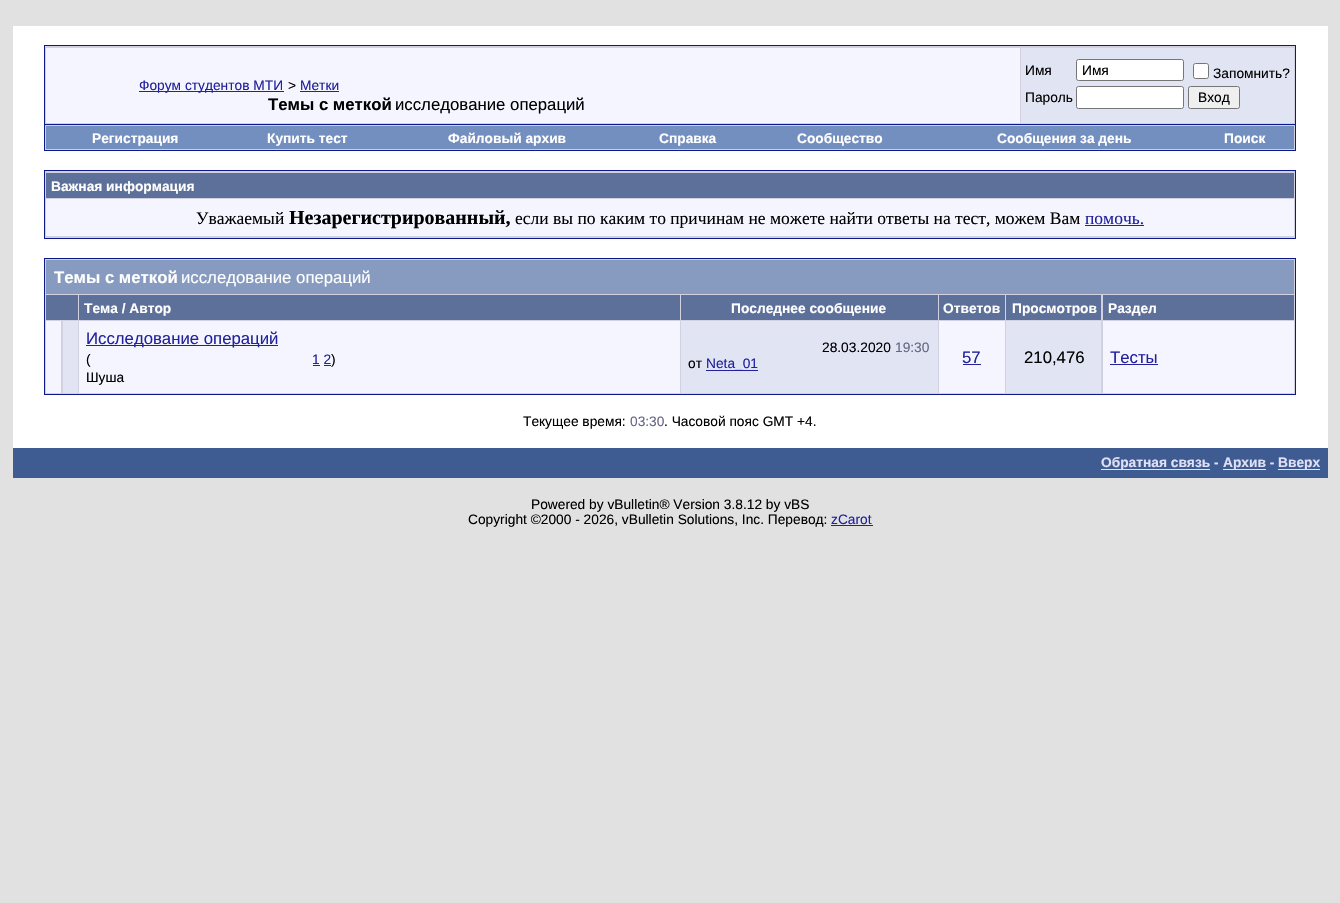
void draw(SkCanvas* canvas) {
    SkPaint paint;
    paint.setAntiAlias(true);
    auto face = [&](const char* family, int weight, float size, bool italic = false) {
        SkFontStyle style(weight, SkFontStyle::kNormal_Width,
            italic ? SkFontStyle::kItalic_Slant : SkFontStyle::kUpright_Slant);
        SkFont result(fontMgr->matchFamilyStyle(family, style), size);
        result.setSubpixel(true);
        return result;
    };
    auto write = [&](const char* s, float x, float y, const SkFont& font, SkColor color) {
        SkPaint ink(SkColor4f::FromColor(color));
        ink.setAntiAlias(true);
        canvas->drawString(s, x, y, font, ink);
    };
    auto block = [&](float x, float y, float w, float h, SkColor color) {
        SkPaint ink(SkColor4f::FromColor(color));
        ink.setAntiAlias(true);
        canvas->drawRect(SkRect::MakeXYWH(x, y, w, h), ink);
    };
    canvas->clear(SkColorSetRGB(225, 225, 226));
    block(13, 26, 1315, 422, SK_ColorWHITE);
    paint.setColor(SkColorSetRGB(209, 209, 225));
    canvas->drawRect(SkRect::MakeXYWH(44.5f, 45.5f, 1251, 79), paint);
    paint.setStyle(SkPaint::kStroke_Style);
    paint.setStrokeWidth(1);
    paint.setColor(SkColorSetRGB(11, 25, 140));
    canvas->drawRect(SkRect::MakeXYWH(44.5f, 45.5f, 1251, 79), paint);
    block(46, 48, 974, 75, SkColorSetRGB(245, 245, 255));
    block(139, 91, 145, 1, SkColorSetRGB(34, 34, 156));
    auto kFont1 = face("Liberation Sans", 400, 13.75f);
    write("Форум студентов МТИ", 139, 90, kFont1, SkColorSetRGB(34, 34, 156));
    write(">", 288, 90, kFont1, SK_ColorBLACK);
    write("Метки", 300, 90, kFont1, SkColorSetRGB(34, 34, 156));
    block(300, 91, 39, 1, SkColorSetRGB(34, 34, 156));
    auto kFont2 = face("Liberation Sans", 700, 16.75f);
    write("Темы с меткой", 268, 110, kFont2, SK_ColorBLACK);
    auto kFont3 = face("Liberation Sans", 400, 16.75f);
    write("исследование операций", 395, 110, kFont3, SK_ColorBLACK);
    block(1021, 48, 273, 75, SkColorSetRGB(225, 228, 242));
    write("Имя", 1025, 75, kFont1, SK_ColorBLACK);
    paint.setStyle(SkPaint::kFill_Style);
    paint.setColor(SK_ColorWHITE);
    canvas->drawRoundRect(SkRect::MakeXYWH(1076.5f, 59.5f, 107, 21), 2, 2, paint);
    paint.setStyle(SkPaint::kStroke_Style);
    paint.setColor(SkColorSetRGB(118, 118, 118));
    canvas->drawRoundRect(SkRect::MakeXYWH(1076.5f, 59.5f, 107, 21), 2, 2, paint);
    write("Имя", 1082, 75, kFont1, SK_ColorBLACK);
    paint.setStyle(SkPaint::kFill_Style);
    paint.setColor(SK_ColorWHITE);
    canvas->drawRoundRect(SkRect::MakeXYWH(1193.5f, 63.5f, 15, 15), 2, 2, paint);
    paint.setStyle(SkPaint::kStroke_Style);
    paint.setColor(SkColorSetRGB(118, 118, 118));
    canvas->drawRoundRect(SkRect::MakeXYWH(1193.5f, 63.5f, 15, 15), 2, 2, paint);
    write("Запомнить?", 1213, 78, kFont1, SK_ColorBLACK);
    write("Пароль", 1025, 102, kFont1, SK_ColorBLACK);
    paint.setStyle(SkPaint::kFill_Style);
    paint.setColor(SK_ColorWHITE);
    canvas->drawRoundRect(SkRect::MakeXYWH(1076.5f, 86.5f, 107, 22), 2, 2, paint);
    paint.setStyle(SkPaint::kStroke_Style);
    paint.setColor(SkColorSetRGB(118, 118, 118));
    canvas->drawRoundRect(SkRect::MakeXYWH(1076.5f, 86.5f, 107, 22), 2, 2, paint);
    paint.setStyle(SkPaint::kFill_Style);
    paint.setColor(SkColorSetRGB(239, 239, 239));
    canvas->drawRoundRect(SkRect::MakeXYWH(1188.5f, 86.5f, 51, 22), 2, 2, paint);
    paint.setStyle(SkPaint::kStroke_Style);
    paint.setColor(SkColorSetRGB(118, 118, 118));
    canvas->drawRoundRect(SkRect::MakeXYWH(1188.5f, 86.5f, 51, 22), 2, 2, paint);
    write("Вход", 1198, 102, kFont1, SK_ColorBLACK);
    block(45, 125, 1250, 25, SkColorSetRGB(209, 209, 225));
    block(1295, 125, 1, 26, SkColorSetRGB(11, 25, 140));
    block(44, 150, 1252, 1, SkColorSetRGB(11, 25, 140));
    block(44, 125, 1, 26, SkColorSetRGB(11, 25, 140));
    block(46, 126, 1248, 23, SkColorSetRGB(115, 143, 191));
    auto kFont4 = face("Liberation Sans", 700, 13.75f);
    write("Регистрация", 92, 143, kFont4, SK_ColorWHITE);
    write("Купить тест", 267, 143, kFont4, SK_ColorWHITE);
    write("Файловый архив", 448, 143, kFont4, SK_ColorWHITE);
    write("Справка", 659, 143, kFont4, SK_ColorWHITE);
    write("Сообщество", 797, 143, kFont4, SK_ColorWHITE);
    write("Сообщения за день", 997, 143, kFont4, SK_ColorWHITE);
    write("Поиск", 1224, 143, kFont4, SK_ColorWHITE);
    paint.setStyle(SkPaint::kFill_Style);
    paint.setColor(SkColorSetRGB(209, 209, 225));
    canvas->drawRect(SkRect::MakeXYWH(44.5f, 170.5f, 1251, 68), paint);
    paint.setStyle(SkPaint::kStroke_Style);
    paint.setColor(SkColorSetRGB(11, 25, 140));
    canvas->drawRect(SkRect::MakeXYWH(44.5f, 170.5f, 1251, 68), paint);
    block(46, 173, 1248, 25, SkColorSetRGB(92, 112, 153));
    write("Важная информация", 51, 191, kFont4, SK_ColorWHITE);
    block(46, 199, 1248, 37, SkColorSetRGB(245, 245, 255));
    auto kFont5 = face("Liberation Serif", 400, 17.5f);
    write("Уважаемый", 196, 224, kFont5, SK_ColorBLACK);
    auto kFont6 = face("Liberation Serif", 700, 20);
    write("Незарегистрированный,", 289, 224, kFont6, SK_ColorBLACK);
    write("если вы по каким то причинам не можете найти ответы на тест, можем Вам", 515, 224, kFont5, SK_ColorBLACK);
    write("помочь.", 1085, 224, kFont5, SkColorSetRGB(34, 34, 156));
    block(1085, 225, 59, 1, SkColorSetRGB(34, 34, 156));
    paint.setStyle(SkPaint::kFill_Style);
    paint.setColor(SkColorSetRGB(209, 209, 225));
    canvas->drawRect(SkRect::MakeXYWH(44.5f, 258.5f, 1251, 136), paint);
    paint.setStyle(SkPaint::kStroke_Style);
    paint.setColor(SkColorSetRGB(11, 25, 140));
    canvas->drawRect(SkRect::MakeXYWH(44.5f, 258.5f, 1251, 136), paint);
    block(46, 260, 1248, 34, SkColorSetRGB(134, 155, 191));
    write("Темы с меткой", 54, 283, kFont2, SK_ColorWHITE);
    write("исследование операций", 181, 283, kFont3, SK_ColorWHITE);
    block(46, 295, 32, 25, SkColorSetRGB(92, 112, 153));
    block(79, 295, 601, 25, SkColorSetRGB(92, 112, 153));
    write("Тема / Автор", 84, 313, kFont4, SK_ColorWHITE);
    block(681, 295, 257, 25, SkColorSetRGB(92, 112, 153));
    write("Последнее сообщение", 731, 313, kFont4, SK_ColorWHITE);
    block(939, 295, 66, 25, SkColorSetRGB(92, 112, 153));
    write("Ответов", 943, 313, kFont4, SK_ColorWHITE);
    block(1006, 295, 95, 25, SkColorSetRGB(92, 112, 153));
    write("Просмотров", 1012, 313, kFont4, SK_ColorWHITE);
    block(1103, 295, 191, 25, SkColorSetRGB(92, 112, 153));
    write("Раздел", 1108, 313, kFont4, SK_ColorWHITE);
    block(46, 321, 15, 72, SkColorSetRGB(245, 245, 255));
    block(63, 321, 15, 72, SkColorSetRGB(225, 228, 242));
    block(79, 321, 601, 72, SkColorSetRGB(245, 245, 255));
    block(86, 345, 192, 1, SkColorSetRGB(34, 34, 156));
    write("Исследование операций", 86, 344, kFont3, SkColorSetRGB(34, 34, 156));
    write("(", 86, 364, kFont1, SK_ColorBLACK);
    write("1 2", 312, 364, kFont1, SkColorSetRGB(34, 34, 156));
    block(313, 365, 7, 1, SkColorSetRGB(34, 34, 156));
    write(")", 331, 364, kFont1, SK_ColorBLACK);
    block(324, 365, 7, 1, SkColorSetRGB(34, 34, 156));
    write("Шуша", 86, 382, kFont1, SK_ColorBLACK);
    block(681, 321, 257, 72, SkColorSetRGB(225, 228, 242));
    write("28.03.2020", 822, 352, kFont1, SK_ColorBLACK);
    write("19:30", 895, 352, kFont1, SkColorSetRGB(102, 102, 134));
    write("от", 688, 368, kFont1, SK_ColorBLACK);
    block(706, 370, 52, 1, SkColorSetRGB(34, 34, 156));
    write("Neta_01", 706, 368, kFont1, SkColorSetRGB(34, 34, 156));
    block(939, 321, 66, 72, SkColorSetRGB(245, 245, 255));
    write("57", 962, 363, kFont3, SkColorSetRGB(34, 34, 156));
    block(963, 364, 18, 1, SkColorSetRGB(34, 34, 156));
    block(1006, 321, 95, 72, SkColorSetRGB(225, 228, 242));
    write("210,476", 1024, 363, kFont3, SK_ColorBLACK);
    block(1103, 321, 191, 72, SkColorSetRGB(245, 245, 255));
    write("Тесты", 1110, 363, kFont3, SkColorSetRGB(34, 34, 156));
    block(1110, 364, 48, 1, SkColorSetRGB(34, 34, 156));
    write("Текущее время:", 523, 426, kFont1, SK_ColorBLACK);
    write("03:30", 630, 426, kFont1, SkColorSetRGB(102, 102, 134));
    write(". Часовой пояс GMT +4.", 664, 426, kFont1, SK_ColorBLACK);
    block(13, 448, 1315, 30, SkColorSetRGB(62, 92, 146));
    block(1101, 469, 109, 1, SkColorSetRGB(224, 224, 246));
    write("Обратная связь -", 1101, 467, kFont4, SkColorSetRGB(224, 224, 246));
    block(1223, 469, 43, 1, SkColorSetRGB(224, 224, 246));
    write("Архив -", 1223, 467, kFont4, SkColorSetRGB(224, 224, 246));
    block(1278, 469, 42, 1, SkColorSetRGB(224, 224, 246));
    write("Вверх", 1278, 467, kFont4, SkColorSetRGB(224, 224, 246));
    write("Powered by vBulletin® Version 3.8.12 by vBS", 531, 509, kFont1, SK_ColorBLACK);
    write("Copyright ©2000 - 2026, vBulletin Solutions, Inc. Перевод:", 468, 524, kFont1, SK_ColorBLACK);
    write("zCarot", 831, 524, kFont1, SkColorSetRGB(34, 34, 156));
    block(831, 525, 42, 1, SkColorSetRGB(34, 34, 156));
}
